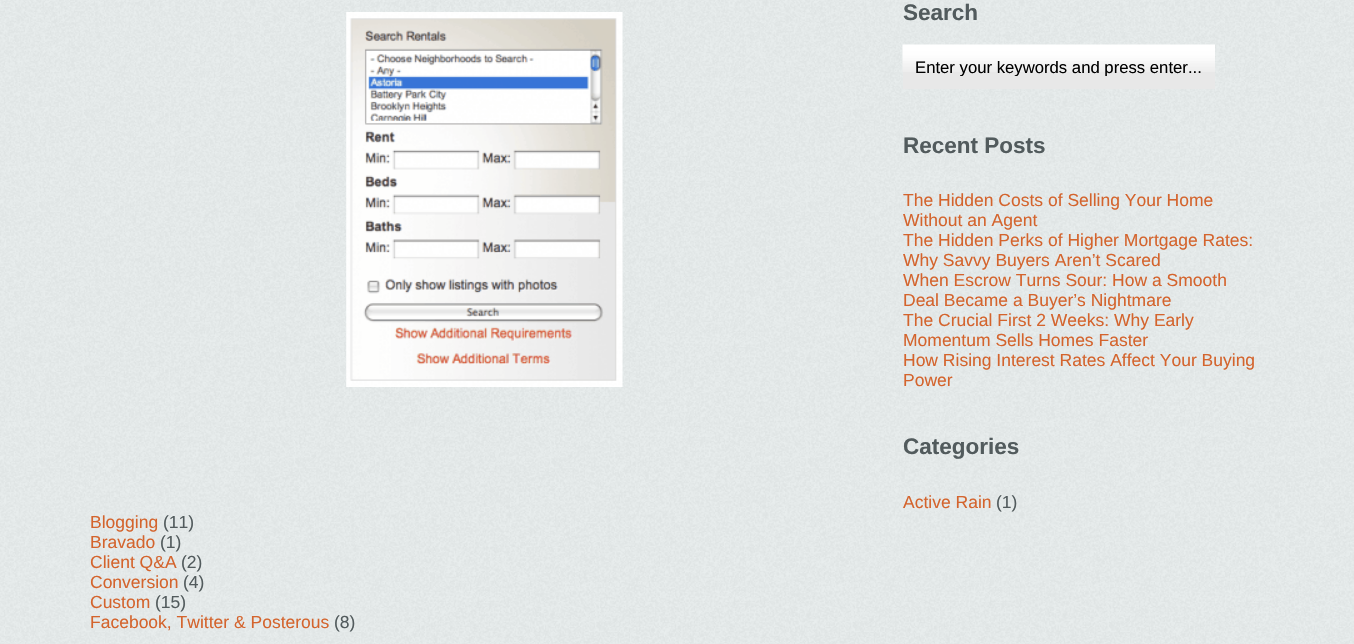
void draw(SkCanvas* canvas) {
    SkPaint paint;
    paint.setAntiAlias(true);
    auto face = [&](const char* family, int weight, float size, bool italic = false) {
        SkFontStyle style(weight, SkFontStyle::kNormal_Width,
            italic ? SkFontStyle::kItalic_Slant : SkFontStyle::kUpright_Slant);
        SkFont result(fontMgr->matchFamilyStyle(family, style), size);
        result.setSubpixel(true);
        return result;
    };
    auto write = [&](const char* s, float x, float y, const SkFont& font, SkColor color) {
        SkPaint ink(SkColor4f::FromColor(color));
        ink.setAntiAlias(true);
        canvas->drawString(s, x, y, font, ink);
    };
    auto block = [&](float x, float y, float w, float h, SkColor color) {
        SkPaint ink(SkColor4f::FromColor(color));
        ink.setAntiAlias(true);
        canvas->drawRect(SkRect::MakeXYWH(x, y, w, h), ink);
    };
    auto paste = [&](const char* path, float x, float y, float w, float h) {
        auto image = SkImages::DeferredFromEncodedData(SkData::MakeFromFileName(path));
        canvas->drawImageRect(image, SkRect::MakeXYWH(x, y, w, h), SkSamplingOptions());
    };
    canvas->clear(SK_ColorWHITE);
    paste("pic1.png", 0, 0, 1354, 644);
    auto kFont1 = face("Liberation Sans", 700, 22.5f);
    write("Search", 903, 20, kFont1, SkColorSetRGB(82, 91, 93));
    block(903, 72, 312, 17, SkColorSetRGB(232, 232, 232));
    paste("pic2.png", 902, 44, 313, 28);
    canvas->save();
    canvas->clipRect(SkRect::MakeXYWH(903, 58, 312, 18));
    auto kFont2 = face("Liberation Sans", 400, 16.7f);
    write("Enter your keywords and press enter...", 915, 73, kFont2, SK_ColorBLACK);
    canvas->restore();
    write("Recent Posts", 903, 153, kFont1, SkColorSetRGB(82, 91, 93));
    auto kFont3 = face("Liberation Sans", 400, 17.5f);
    write("The Hidden Costs of Selling Your Home", 903, 206, kFont3, SkColorSetRGB(212, 100, 45));
    write("Without an Agent", 903, 226, kFont3, SkColorSetRGB(212, 100, 45));
    write("The Hidden Perks of Higher Mortgage Rates:", 903, 246, kFont3, SkColorSetRGB(212, 100, 45));
    write("Why Savvy Buyers Aren’t Scared", 903, 266, kFont3, SkColorSetRGB(212, 100, 45));
    write("When Escrow Turns Sour: How a Smooth", 903, 286, kFont3, SkColorSetRGB(212, 100, 45));
    write("Deal Became a Buyer’s Nightmare", 903, 306, kFont3, SkColorSetRGB(212, 100, 45));
    write("The Crucial First 2 Weeks: Why Early", 903, 326, kFont3, SkColorSetRGB(212, 100, 45));
    write("Momentum Sells Homes Faster", 903, 346, kFont3, SkColorSetRGB(212, 100, 45));
    write("How Rising Interest Rates Affect Your Buying", 903, 366, kFont3, SkColorSetRGB(212, 100, 45));
    write("Power", 903, 386, kFont3, SkColorSetRGB(212, 100, 45));
    write("Categories", 903, 454, kFont1, SkColorSetRGB(82, 91, 93));
    write("Active Rain", 903, 508, kFont3, SkColorSetRGB(212, 100, 45));
    write("(1)", 996, 508, kFont3, SkColorSetRGB(82, 91, 93));
    write("Blogging", 90, 528, kFont3, SkColorSetRGB(212, 100, 45));
    write("(11)", 163, 528, kFont3, SkColorSetRGB(82, 91, 93));
    write("Bravado", 90, 548, kFont3, SkColorSetRGB(212, 100, 45));
    write("(1)", 160, 548, kFont3, SkColorSetRGB(82, 91, 93));
    write("Client Q&A", 90, 568, kFont3, SkColorSetRGB(212, 100, 45));
    write("(2)", 181, 568, kFont3, SkColorSetRGB(82, 91, 93));
    write("Conversion", 90, 588, kFont3, SkColorSetRGB(212, 100, 45));
    write("(4)", 183, 588, kFont3, SkColorSetRGB(82, 91, 93));
    write("Custom", 90, 608, kFont3, SkColorSetRGB(212, 100, 45));
    write("(15)", 155, 608, kFont3, SkColorSetRGB(82, 91, 93));
    write("Facebook, Twitter & Posterous", 90, 628, kFont3, SkColorSetRGB(212, 100, 45));
    write("(8)", 334, 628, kFont3, SkColorSetRGB(82, 91, 93));
    paste("pic3.png", 346, 12, 277, 375);
}
